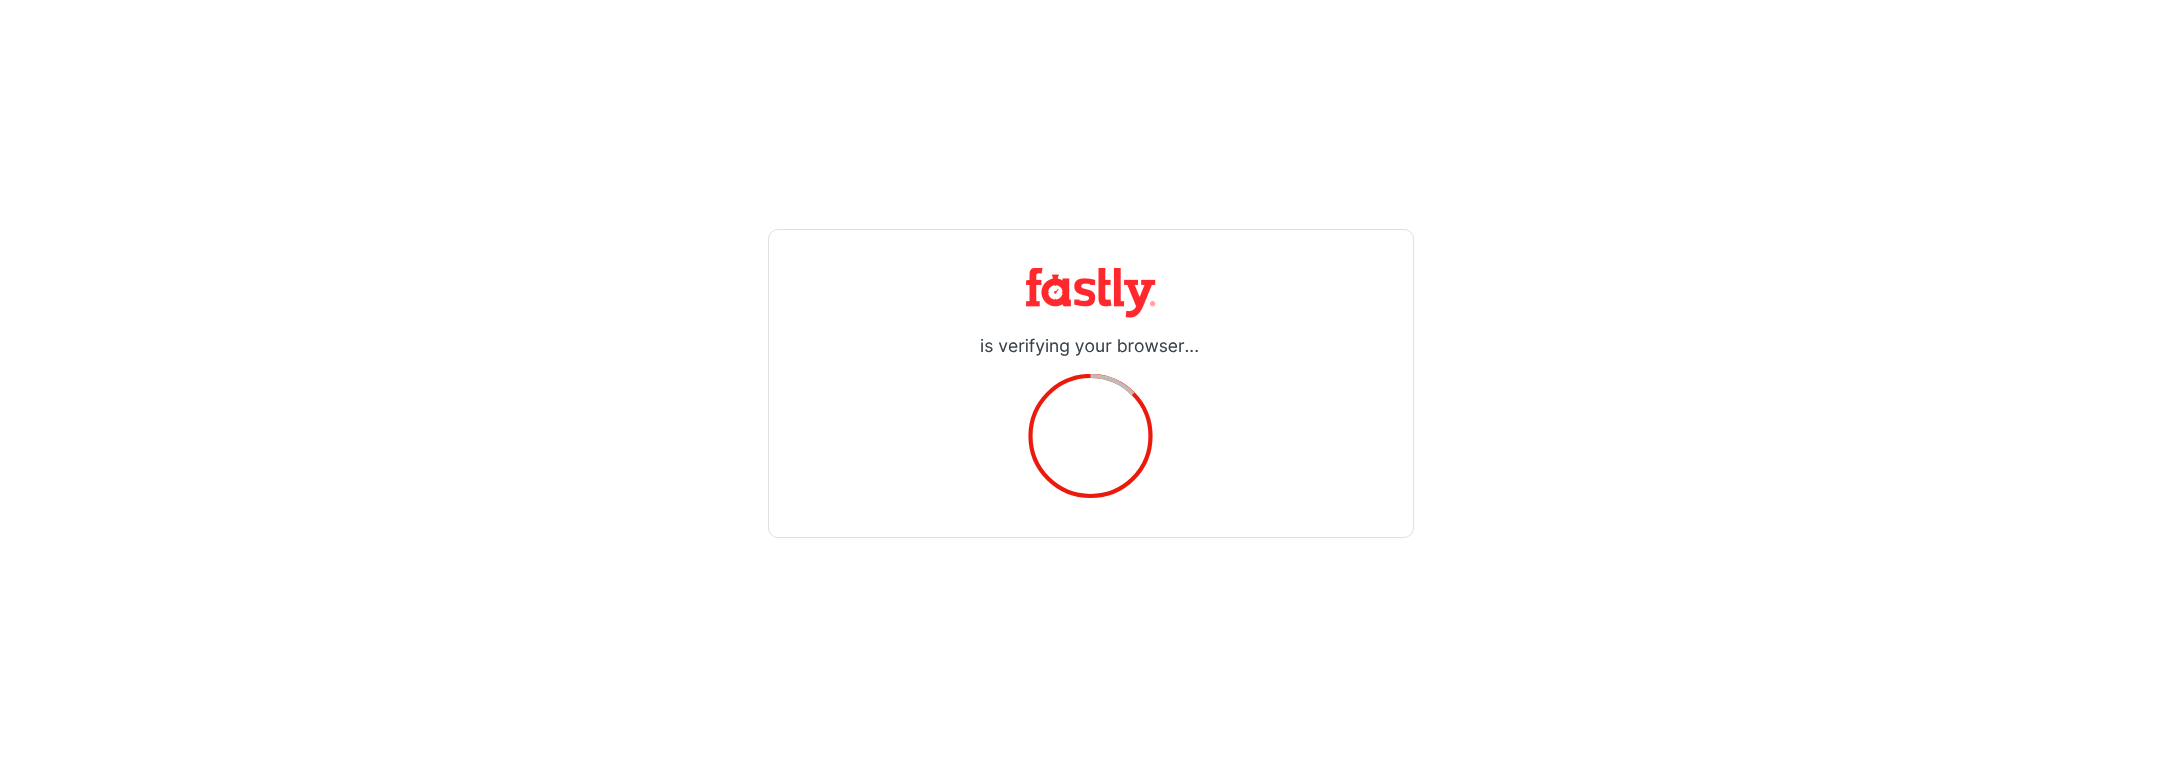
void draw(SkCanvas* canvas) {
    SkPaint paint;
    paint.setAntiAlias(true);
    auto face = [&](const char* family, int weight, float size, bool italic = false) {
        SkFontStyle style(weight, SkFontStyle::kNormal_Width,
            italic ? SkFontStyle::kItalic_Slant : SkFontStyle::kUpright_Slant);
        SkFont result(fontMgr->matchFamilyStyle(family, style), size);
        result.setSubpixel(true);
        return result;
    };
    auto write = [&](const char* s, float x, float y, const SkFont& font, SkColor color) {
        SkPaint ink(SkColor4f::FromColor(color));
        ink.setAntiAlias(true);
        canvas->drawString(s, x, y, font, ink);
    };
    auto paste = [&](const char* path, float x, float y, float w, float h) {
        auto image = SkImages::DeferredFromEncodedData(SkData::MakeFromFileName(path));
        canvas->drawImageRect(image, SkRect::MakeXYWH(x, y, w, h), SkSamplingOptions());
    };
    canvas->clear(SK_ColorWHITE);
    paint.setStyle(SkPaint::kStroke_Style);
    paint.setStrokeWidth(1);
    paint.setColor(SkColorSetRGB(220, 224, 228));
    canvas->drawRoundRect(SkRect::MakeXYWH(768.5f, 229.5f, 645, 308), 9.5f, 9.5f, paint);
    paste("pic1.png", 1026, 268, 130, 50);
    auto kFont1 = face("Inter", 400, 17.5f);
    write("is verifying your browser...", 980, 352, kFont1, SkColorSetRGB(58, 66, 74));
    canvas->save();
    canvas->clipRect(SkRect::MakeXYWH(806, 374, 569, 125));
    paint.setStrokeWidth(4.2f);
    paint.setColor(SkColorSetRGB(235, 26, 12));
    canvas->drawPath(SkPathBuilder().moveTo(1030.5f, 436).cubicTo(1030.5f, 403, 1057.5f, 376, 1090.5f, 376).cubicTo(1124, 376, 1150.5f, 403, 1150.5f, 436).cubicTo(1150.5f, 469.5f, 1124, 496, 1090.5f, 496).cubicTo(1057.5f, 496, 1030.5f, 469.5f, 1030.5f, 436).close().detach(), paint);
    canvas->restore();
    paint.setColor(SkColorSetRGB(194, 186, 181));
    canvas->drawPath(SkPathBuilder().moveTo(1133, 394).cubicTo(1122, 382.5f, 1106.5f, 376, 1090.5f, 376).detach(), paint);
}
